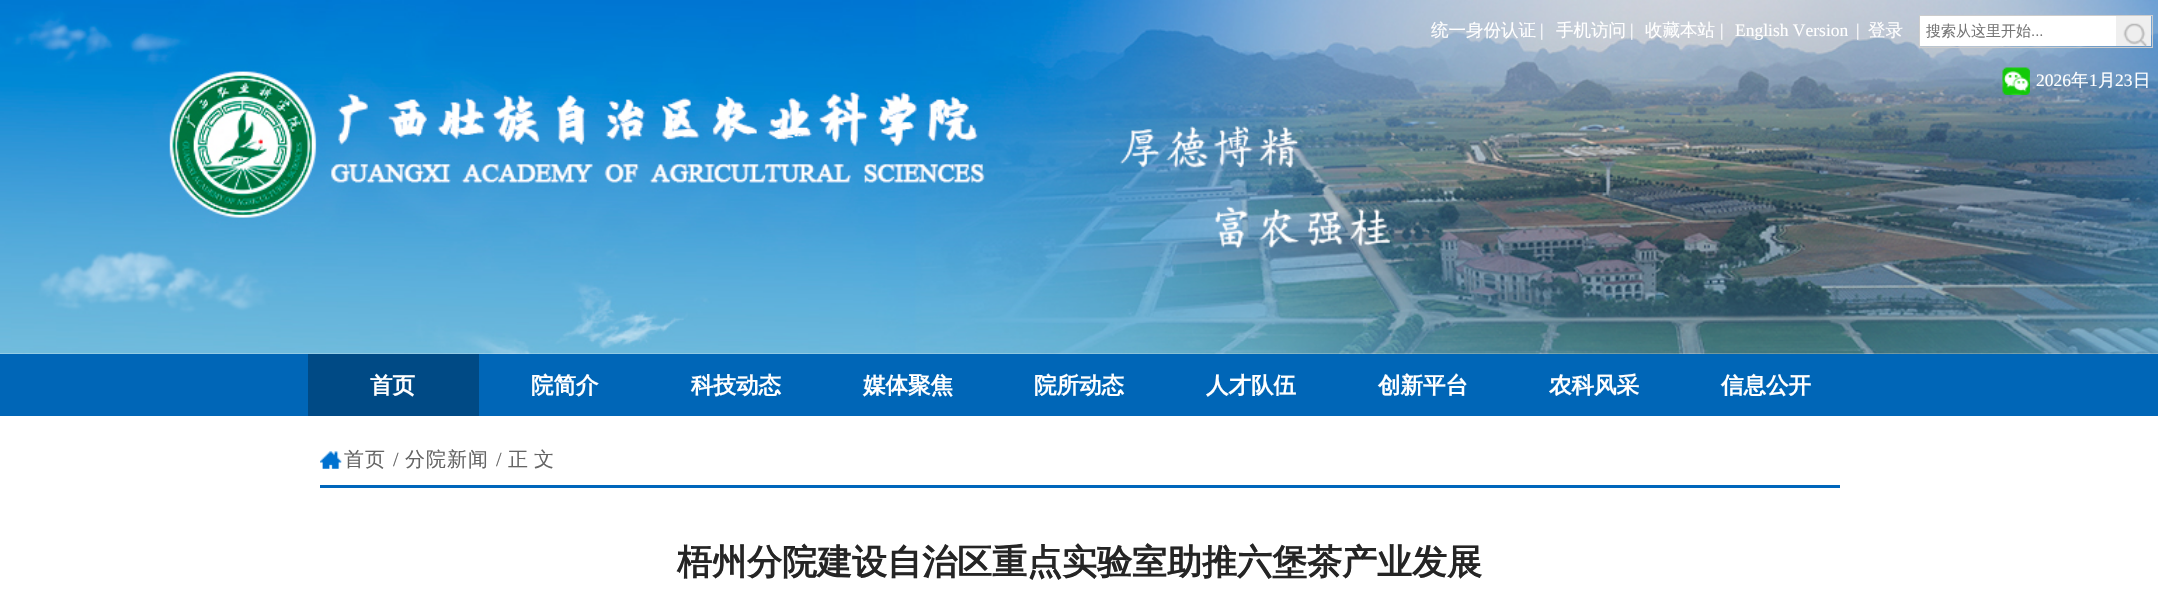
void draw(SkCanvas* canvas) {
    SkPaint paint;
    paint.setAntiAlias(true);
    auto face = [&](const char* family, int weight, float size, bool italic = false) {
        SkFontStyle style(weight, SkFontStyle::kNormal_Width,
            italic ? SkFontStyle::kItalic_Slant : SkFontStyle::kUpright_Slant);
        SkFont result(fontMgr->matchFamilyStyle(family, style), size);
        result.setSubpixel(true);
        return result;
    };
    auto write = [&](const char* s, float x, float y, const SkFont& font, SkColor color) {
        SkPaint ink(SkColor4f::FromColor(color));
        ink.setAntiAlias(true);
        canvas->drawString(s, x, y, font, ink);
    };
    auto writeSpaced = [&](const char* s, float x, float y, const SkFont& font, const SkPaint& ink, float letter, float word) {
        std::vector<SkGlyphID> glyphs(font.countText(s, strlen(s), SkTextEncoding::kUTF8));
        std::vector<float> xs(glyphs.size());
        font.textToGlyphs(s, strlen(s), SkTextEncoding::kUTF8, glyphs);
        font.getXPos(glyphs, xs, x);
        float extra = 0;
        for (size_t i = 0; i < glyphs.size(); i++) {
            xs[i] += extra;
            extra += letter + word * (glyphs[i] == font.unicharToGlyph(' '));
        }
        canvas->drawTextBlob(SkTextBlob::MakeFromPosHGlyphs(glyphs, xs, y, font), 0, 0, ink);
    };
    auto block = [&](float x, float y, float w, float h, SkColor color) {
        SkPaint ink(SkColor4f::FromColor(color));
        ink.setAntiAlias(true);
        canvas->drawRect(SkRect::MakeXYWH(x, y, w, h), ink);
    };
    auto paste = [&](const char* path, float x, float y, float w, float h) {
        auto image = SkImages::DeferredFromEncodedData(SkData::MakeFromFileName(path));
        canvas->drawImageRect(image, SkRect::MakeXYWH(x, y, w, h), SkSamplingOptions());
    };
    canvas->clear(SK_ColorWHITE);
    paste("pic1.png", 0, 0, 2158, 354);
    auto kFont1 = face("WenQuanYi Zen Hei", 500, 17.5f);
    write("统一身份认证", 1431, 36, kFont1, SK_ColorWHITE);
    auto kFont2 = face("Liberation Serif", 400, 17.5f);
    write("|", 1540, 36, kFont2, SK_ColorWHITE);
    write("手机访问", 1556, 36, kFont1, SK_ColorWHITE);
    write("|", 1630, 36, kFont2, SK_ColorWHITE);
    write("收藏本站", 1645, 36, kFont1, SK_ColorWHITE);
    write("|", 1720, 36, kFont2, SK_ColorWHITE);
    write("English Version", 1735, 36, kFont2, SK_ColorWHITE);
    write("|", 1856, 36, kFont2, SK_ColorWHITE);
    write("登录", 1868, 36, kFont1, SK_ColorWHITE);
    paint.setStyle(SkPaint::kStroke_Style);
    paint.setStrokeWidth(1);
    paint.setColor(SkColorSetRGB(204, 204, 204));
    canvas->drawRect(SkRect::MakeXYWH(1919.5f, 15.5f, 233, 32), paint);
    block(1920, 16, 196, 30, SK_ColorWHITE);
    auto kFont3 = face("WenQuanYi Zen Hei", 500, 15);
    write("搜索从这里开始", 1926, 36, kFont3, SkColorSetRGB(117, 117, 117));
    auto kFont4 = face("Liberation Sans", 400, 15);
    write("...", 2031, 36, kFont4, SkColorSetRGB(117, 117, 117));
    block(2116, 16, 35, 30, SkColorSetRGB(239, 239, 239));
    paste("pic2.png", 2123, 23, 24, 24);
    paste("pic3.png", 2002, 67, 28, 28);
    write("2026", 2036, 86, kFont2, SK_ColorWHITE);
    write("年", 2071, 86, kFont1, SK_ColorWHITE);
    write("1", 2089, 86, kFont2, SK_ColorWHITE);
    write("月", 2098, 86, kFont1, SK_ColorWHITE);
    write("23", 2115, 86, kFont2, SK_ColorWHITE);
    write("日", 2133, 86, kFont1, SK_ColorWHITE);
    block(0, 354, 2158, 62, SkColorSetRGB(0, 102, 183));
    block(308, 354, 171, 62, SkColorSetRGB(0, 74, 133));
    auto kFont5 = face("WenQuanYi Zen Hei", 700, 22.5f);
    write("首页", 370, 393, kFont5, SK_ColorWHITE);
    write("院简介", 531, 393, kFont5, SK_ColorWHITE);
    write("科技动态", 691, 393, kFont5, SK_ColorWHITE);
    write("媒体聚焦", 863, 393, kFont5, SK_ColorWHITE);
    write("院所动态", 1034, 393, kFont5, SK_ColorWHITE);
    write("人才队伍", 1206, 393, kFont5, SK_ColorWHITE);
    write("创新平台", 1378, 393, kFont5, SK_ColorWHITE);
    write("农科风采", 1549, 393, kFont5, SK_ColorWHITE);
    write("信息公开", 1721, 393, kFont5, SK_ColorWHITE);
    paste("pic4.png", 320, 451, 22, 18);
    block(320, 485, 1520, 3, SkColorSetRGB(0, 102, 187));
    auto kFont6 = face("WenQuanYi Zen Hei", 500, 20);
    paint.setStyle(SkPaint::kFill_Style);
    paint.setColor(SkColorSetRGB(101, 101, 101));
    writeSpaced("首页", 344, 466, kFont6, paint, 1, 0);
    auto kFont7 = face("Liberation Serif", 400, 20);
    writeSpaced("/", 393, 466, kFont7, paint, 6, 0);
    writeSpaced("分院新闻", 405, 466, kFont6, paint, 1, 0);
    writeSpaced("/", 496, 466, kFont7, paint, 6, 0);
    writeSpaced("正文", 508, 466, kFont6, paint, 6, 0);
    auto kFont8 = face("WenQuanYi Zen Hei", 700, 35);
    write("梧州分院建设自治区重点实验室助推六堡茶产业发展", 677, 574, kFont8, SkColorSetRGB(37, 37, 37));
}
